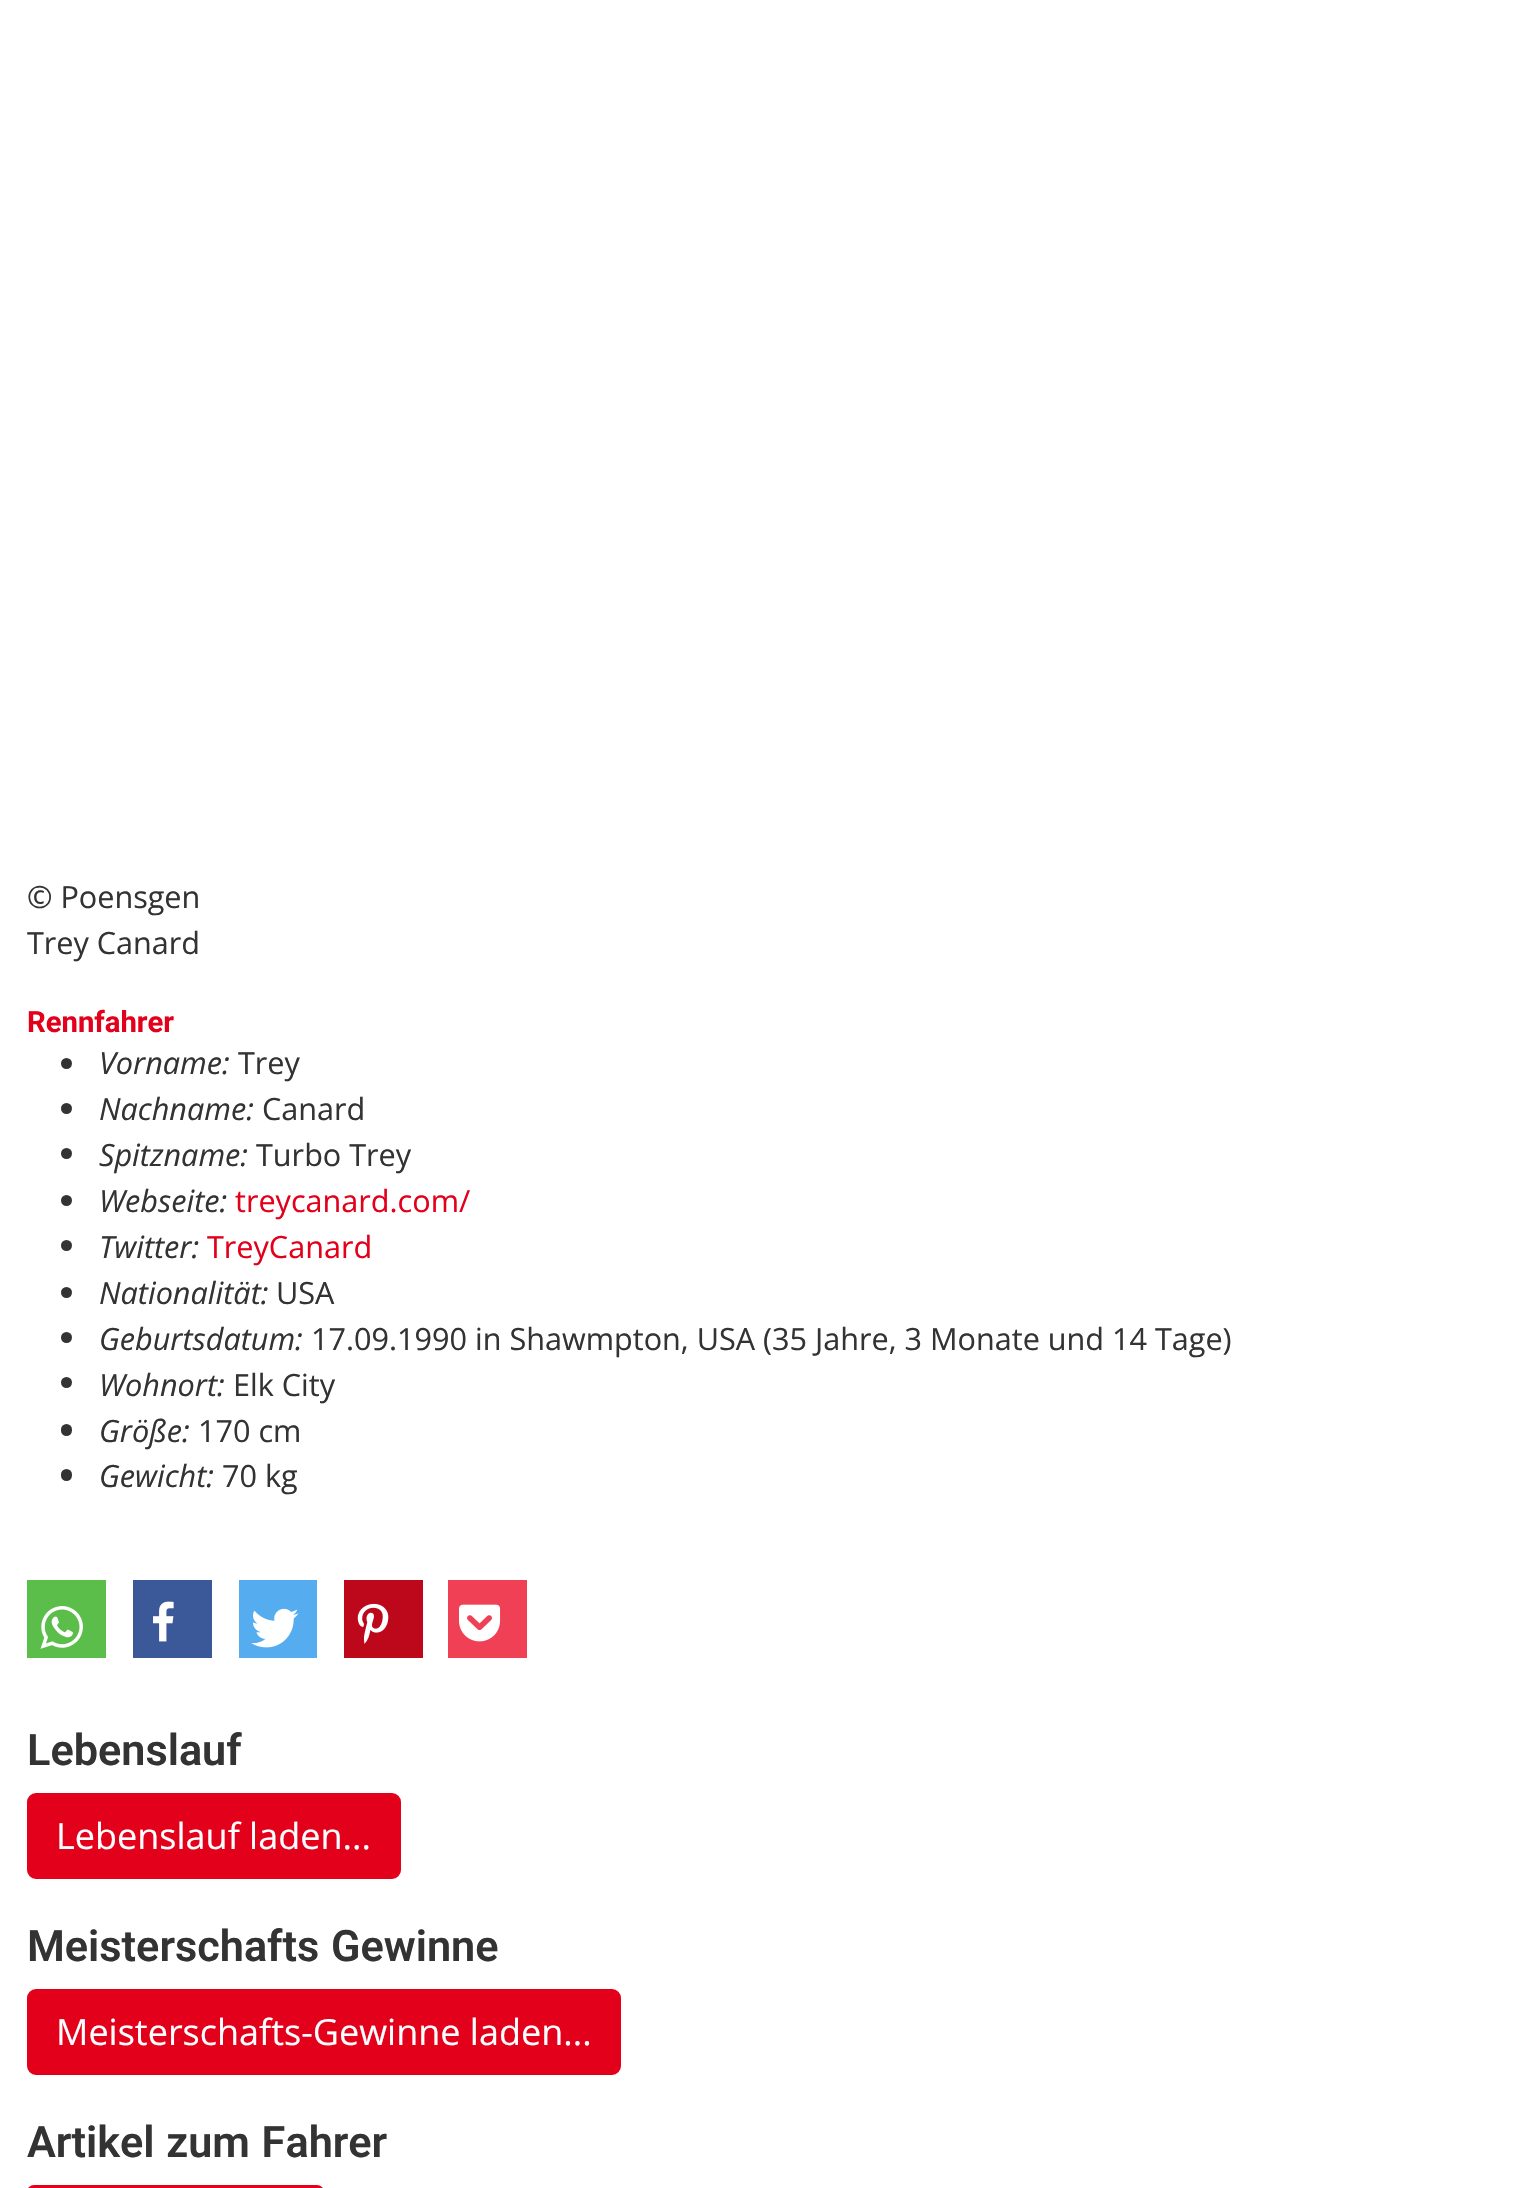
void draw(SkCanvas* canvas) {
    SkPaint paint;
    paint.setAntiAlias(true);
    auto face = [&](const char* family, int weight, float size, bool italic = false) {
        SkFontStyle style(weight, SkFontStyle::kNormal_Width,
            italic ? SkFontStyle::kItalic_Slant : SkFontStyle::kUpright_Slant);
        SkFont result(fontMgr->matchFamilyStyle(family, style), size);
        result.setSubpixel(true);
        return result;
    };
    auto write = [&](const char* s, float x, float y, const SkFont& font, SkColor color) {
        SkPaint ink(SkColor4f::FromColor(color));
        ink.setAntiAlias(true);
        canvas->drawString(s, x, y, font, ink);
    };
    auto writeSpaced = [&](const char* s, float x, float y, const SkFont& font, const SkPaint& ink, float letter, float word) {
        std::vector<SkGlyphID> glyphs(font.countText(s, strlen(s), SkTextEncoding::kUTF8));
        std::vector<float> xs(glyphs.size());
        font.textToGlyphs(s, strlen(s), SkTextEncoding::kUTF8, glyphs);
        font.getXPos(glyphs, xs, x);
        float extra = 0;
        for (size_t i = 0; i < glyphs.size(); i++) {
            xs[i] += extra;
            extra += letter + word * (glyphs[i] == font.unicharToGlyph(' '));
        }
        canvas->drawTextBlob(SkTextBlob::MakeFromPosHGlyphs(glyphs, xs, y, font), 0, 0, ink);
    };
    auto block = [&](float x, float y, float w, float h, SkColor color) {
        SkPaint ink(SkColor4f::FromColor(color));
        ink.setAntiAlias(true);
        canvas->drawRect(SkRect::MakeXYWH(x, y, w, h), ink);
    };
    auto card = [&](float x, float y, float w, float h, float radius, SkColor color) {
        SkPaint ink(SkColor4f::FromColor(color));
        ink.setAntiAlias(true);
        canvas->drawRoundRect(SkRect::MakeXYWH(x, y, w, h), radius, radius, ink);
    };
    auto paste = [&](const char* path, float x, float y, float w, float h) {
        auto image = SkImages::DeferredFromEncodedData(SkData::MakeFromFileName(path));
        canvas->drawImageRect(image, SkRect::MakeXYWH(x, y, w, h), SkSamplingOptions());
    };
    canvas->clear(SK_ColorWHITE);
    auto kFont1 = face("Open Sans", 400, 30.6f);
    write("© Poensgen", 27, 908, kFont1, SkColorSetRGB(51, 51, 51));
    write("Trey Canard", 27, 954, kFont1, SkColorSetRGB(51, 51, 51));
    auto kFont2 = face("Roboto", 700, 29.25f);
    write("Rennfahrer", 27, 1032, kFont2, SkColorSetRGB(227, 0, 27));
    paint.setColor(SkColorSetRGB(51, 51, 51));
    canvas->drawCircle(66.5f, 1063.5f, 5.5f, paint);
    auto kFont3 = face("Open Sans", 400, 30.6f, true);
    write("Vorname:", 99, 1074, kFont3, SkColorSetRGB(51, 51, 51));
    write("Trey", 238, 1074, kFont1, SkColorSetRGB(51, 51, 51));
    canvas->drawCircle(66.5f, 1108.5f, 5.5f, paint);
    write("Nachname:", 99, 1120, kFont3, SkColorSetRGB(51, 51, 51));
    write("Canard", 262, 1120, kFont1, SkColorSetRGB(51, 51, 51));
    canvas->drawCircle(66.5f, 1153.5f, 5.5f, paint);
    write("Spitzname:", 99, 1166, kFont3, SkColorSetRGB(51, 51, 51));
    write("Turbo Trey", 256, 1166, kFont1, SkColorSetRGB(51, 51, 51));
    canvas->drawCircle(66.5f, 1200.5f, 5.5f, paint);
    write("Webseite:", 99, 1212, kFont3, SkColorSetRGB(51, 51, 51));
    write("treycanard.com/", 235, 1212, kFont1, SkColorSetRGB(227, 0, 27));
    canvas->drawCircle(66.5f, 1245.5f, 5.5f, paint);
    write("Twitter:", 99, 1258, kFont3, SkColorSetRGB(51, 51, 51));
    write("TreyCanard", 207, 1258, kFont1, SkColorSetRGB(227, 0, 27));
    canvas->drawCircle(66.5f, 1292.5f, 5.5f, paint);
    write("Nationalität:", 99, 1304, kFont3, SkColorSetRGB(51, 51, 51));
    write("USA", 276, 1304, kFont1, SkColorSetRGB(51, 51, 51));
    canvas->drawCircle(66.5f, 1337.5f, 5.5f, paint);
    write("Geburtsdatum:", 99, 1350, kFont3, SkColorSetRGB(51, 51, 51));
    write("17.09.1990 in Shawmpton, USA (35 Jahre, 3 Monate und 14 Tage)", 311, 1350, kFont1, SkColorSetRGB(51, 51, 51));
    canvas->drawCircle(66.5f, 1382.5f, 5.5f, paint);
    write("Wohnort:", 99, 1396, kFont3, SkColorSetRGB(51, 51, 51));
    write("Elk City", 233, 1396, kFont1, SkColorSetRGB(51, 51, 51));
    card(61, 1424, 11, 12, 5.5f, SkColorSetRGB(51, 51, 51));
    write("Größe:", 99, 1442, kFont3, SkColorSetRGB(51, 51, 51));
    write("170 cm", 198, 1442, kFont1, SkColorSetRGB(51, 51, 51));
    card(61, 1469, 11, 12, 5.5f, SkColorSetRGB(51, 51, 51));
    write("Gewicht:", 99, 1487, kFont3, SkColorSetRGB(51, 51, 51));
    write("70 kg", 222, 1487, kFont1, SkColorSetRGB(51, 51, 51));
    block(27, 1580, 79, 78, SkColorSetRGB(92, 190, 74));
    paste("pic1.png", 40, 1606, 43, 43);
    block(133, 1580, 79, 78, SkColorSetRGB(59, 89, 152));
    paste("pic2.png", 153, 1601, 21, 41);
    block(239, 1580, 78, 78, SkColorSetRGB(85, 172, 238));
    paste("pic3.png", 251, 1608, 48, 40);
    block(344, 1580, 79, 78, SkColorSetRGB(189, 8, 28));
    paste("pic4.png", 357, 1603, 32, 41);
    block(448, 1580, 79, 78, SkColorSetRGB(239, 64, 86));
    paste("pic5.png", 459, 1604, 42, 38);
    auto kFont4 = face("Roboto", 600, 43.25f);
    write("Lebenslauf", 27, 1765, kFont4, SkColorSetRGB(51, 51, 51));
    paint.setColor(SkColorSetRGB(227, 0, 27));
    canvas->drawRoundRect(SkRect::MakeXYWH(28, 1794, 372, 84), 8, 8, paint);
    paint.setStyle(SkPaint::kStroke_Style);
    paint.setStrokeWidth(2);
    canvas->drawRoundRect(SkRect::MakeXYWH(28, 1794, 372, 84), 8, 8, paint);
    auto kFont5 = face("Open Sans", 400, 36);
    write("Lebenslauf laden...", 56, 1849, kFont5, SK_ColorWHITE);
    paint.setStyle(SkPaint::kFill_Style);
    paint.setColor(SkColorSetRGB(51, 51, 51));
    writeSpaced("Meisterschafts Gewinne", 27, 1961, kFont4, paint, 0, 1);
    paint.setColor(SkColorSetRGB(227, 0, 27));
    canvas->drawRoundRect(SkRect::MakeXYWH(28, 1990, 592, 84), 8, 8, paint);
    paint.setStyle(SkPaint::kStroke_Style);
    canvas->drawRoundRect(SkRect::MakeXYWH(28, 1990, 592, 84), 8, 8, paint);
    write("Meisterschafts-Gewinne laden...", 56, 2045, kFont5, SK_ColorWHITE);
    paint.setStyle(SkPaint::kFill_Style);
    paint.setColor(SkColorSetRGB(51, 51, 51));
    writeSpaced("Artikel zum Fahrer", 27, 2157, kFont4, paint, 0, 1);
    paint.setColor(SkColorSetRGB(227, 0, 27));
    canvas->drawRoundRect(SkRect::MakeXYWH(28, 2186, 295, 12), 8, 8, paint);
    paint.setStyle(SkPaint::kStroke_Style);
    canvas->drawRoundRect(SkRect::MakeXYWH(28, 2186, 295, 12), 8, 8, paint);
}
